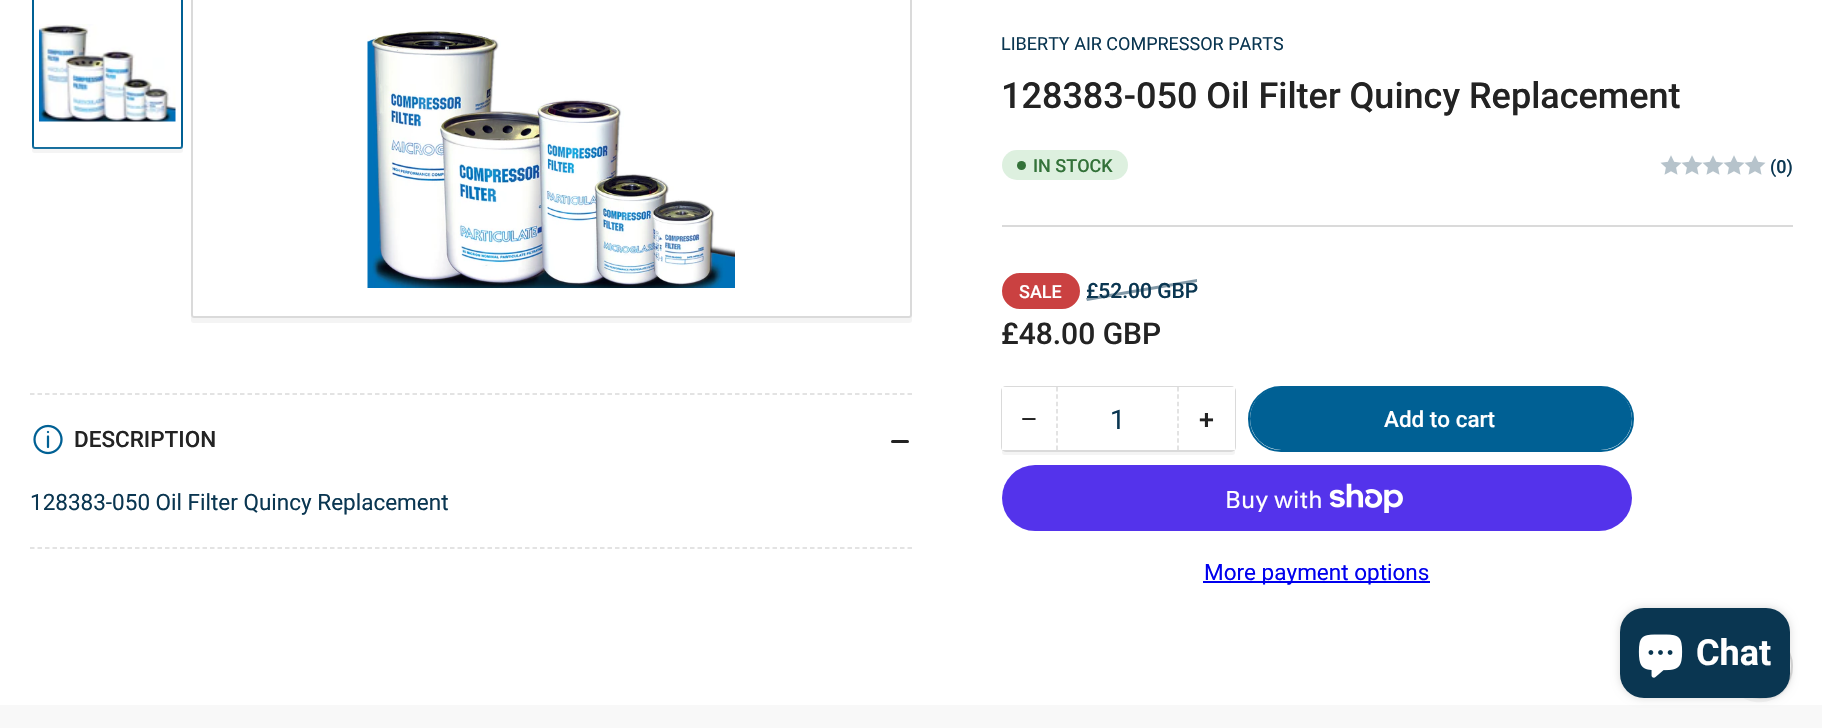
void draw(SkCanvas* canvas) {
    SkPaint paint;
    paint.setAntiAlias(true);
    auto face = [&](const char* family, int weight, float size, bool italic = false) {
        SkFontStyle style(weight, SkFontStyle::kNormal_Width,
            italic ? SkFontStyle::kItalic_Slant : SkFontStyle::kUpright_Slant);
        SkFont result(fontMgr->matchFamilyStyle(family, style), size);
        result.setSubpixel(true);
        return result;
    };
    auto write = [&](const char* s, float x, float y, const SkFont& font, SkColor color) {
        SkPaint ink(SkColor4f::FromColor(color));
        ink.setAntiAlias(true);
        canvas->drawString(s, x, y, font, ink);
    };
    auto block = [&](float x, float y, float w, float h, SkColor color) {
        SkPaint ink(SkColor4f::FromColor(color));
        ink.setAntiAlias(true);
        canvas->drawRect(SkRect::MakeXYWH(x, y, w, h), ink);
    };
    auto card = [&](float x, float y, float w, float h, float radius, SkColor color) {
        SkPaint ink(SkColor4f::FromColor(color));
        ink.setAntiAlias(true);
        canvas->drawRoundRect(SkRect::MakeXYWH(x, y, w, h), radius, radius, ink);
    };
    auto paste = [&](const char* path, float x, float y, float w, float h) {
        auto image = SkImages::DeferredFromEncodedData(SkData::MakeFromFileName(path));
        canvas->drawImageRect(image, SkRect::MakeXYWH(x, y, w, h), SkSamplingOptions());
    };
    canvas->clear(SK_ColorWHITE);
    paint.setColor(SkColorSetRGB(244, 244, 244));
    canvas->drawPath(SkPathBuilder().moveTo(32, 147).lineTo(32, 150).cubicTo(32, 152, 33, 153, 35, 153).lineTo(180, 153).cubicTo(182, 153, 183, 152, 183, 150).lineTo(183, 146).cubicTo(183, 147, 182, 148, 180, 148).lineTo(34, 148).cubicTo(33, 148, 33, 148, 32, 147).close().detach(), paint);
    paint.setColor(SK_ColorWHITE);
    canvas->drawRoundRect(SkRect::MakeXYWH(33, -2, 149, 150), 2, 2, paint);
    paint.setStyle(SkPaint::kStroke_Style);
    paint.setStrokeWidth(2);
    paint.setColor(SkColorSetRGB(0, 96, 148));
    canvas->drawRoundRect(SkRect::MakeXYWH(33, -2, 149, 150), 2, 2, paint);
    paste("pic1.png", 39, 24, 137, 98);
    paint.setStyle(SkPaint::kFill_Style);
    {
        const SkColor colors[] = {SK_ColorWHITE, SkColorSetARGB(0, 255, 255, 255)};
        const float stops[] = {0, 1};
        const SkPoint ends[] = {{107, 195}, {107, 143}};
        paint.setShader(SkGradientShader::MakeLinear(ends, colors, stops, 2, SkTileMode::kClamp));
        paint.setAlpha(255);
    }
    canvas->drawRect(SkRect::MakeXYWH(32, 144, 151, 5), paint);
    paint.setShader(nullptr);
    paint.setColor(SkColorSetRGB(244, 244, 244));
    canvas->drawPath(SkPathBuilder().moveTo(191, 317).lineTo(191, 320).cubicTo(191, 322, 192, 323, 194, 323).lineTo(909, 323).cubicTo(911, 323, 912, 322, 912, 320).lineTo(912, 315).cubicTo(912, 317, 911, 318, 909, 318).lineTo(194, 318).cubicTo(192, 318, 192, 317, 191, 317).close().detach(), paint);
    paint.setStyle(SkPaint::kStroke_Style);
    paint.setColor(SkColorSetRGB(218, 218, 218));
    canvas->drawRoundRect(SkRect::MakeXYWH(192, -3, 719, 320), 2, 2, paint);
    paste("pic2.png", 367, 31, 368, 257);
    block(1002, 225, 791, 2, SkColorSetRGB(218, 218, 218));
    auto kFont1 = face("Roboto", 400, 18);
    write("LIBERTY AIR COMPRESSOR PARTS", 1001, 50, kFont1, SkColorSetRGB(10, 54, 81));
    auto kFont2 = face("Roboto", 500, 36);
    write("128383-050 Oil Filter Quincy Replacement", 1001, 108, kFont2, SkColorSetRGB(35, 35, 35));
    card(1002, 150, 126, 30, 15, SkColorSetRGB(221, 240, 223));
    paint.setStyle(SkPaint::kFill_Style);
    paint.setColor(SkColorSetRGB(51, 114, 57));
    canvas->drawCircle(1021.5f, 165.5f, 4.5f, paint);
    auto kFont3 = face("Roboto", 500, 18);
    write("IN STOCK", 1033, 172, kFont3, SkColorSetRGB(51, 114, 57));
    paste("pic3.png", 1660, 155, 22, 20);
    paste("pic4.png", 1681, 155, 22, 20);
    paste("pic4.png", 1702, 155, 22, 20);
    paste("pic4.png", 1723, 155, 22, 20);
    paste("pic4.png", 1744, 155, 22, 20);
    write("(0)", 1770, 173, kFont3, SkColorSetRGB(10, 54, 81));
    paint.setColor(SkColorSetRGB(202, 65, 65));
    canvas->drawRoundRect(SkRect::MakeXYWH(1003.5f, 274.5f, 75, 33), 16.5f, 16.5f, paint);
    paint.setStyle(SkPaint::kStroke_Style);
    paint.setStrokeWidth(3);
    canvas->drawRoundRect(SkRect::MakeXYWH(1003.5f, 274.5f, 75, 33), 16.5f, 16.5f, paint);
    write("SALE", 1019, 298, kFont3, SK_ColorWHITE);
    auto kFont4 = face("Roboto", 500, 21);
    write("£52.00 GBP", 1086, 298, kFont4, SkColorSetRGB(10, 54, 81));
    paint.setStyle(SkPaint::kFill_Style);
    paint.setColor(SkColorSetARGB(128, 10, 54, 81));
    canvas->drawPath(SkPathBuilder().moveTo(1086, 298).lineTo(1197, 279).lineTo(1197, 282).lineTo(1087, 301).close().detach(), paint);
    auto kFont5 = face("Roboto", 500, 30);
    write("£48.00 GBP", 1001, 344, kFont5, SkColorSetRGB(35, 35, 35));
    paint.setColor(SkColorSetRGB(244, 244, 244));
    canvas->drawPath(SkPathBuilder().moveTo(1002, 447).lineTo(1002, 452).cubicTo(1002, 454, 1003, 455, 1005, 455).lineTo(1232, 455).cubicTo(1234, 455, 1235, 454, 1235, 452).lineTo(1235, 395).lineTo(1234, 393).lineTo(1234, 447).cubicTo(1234, 449, 1233, 450, 1232, 450).lineTo(1005, 450).cubicTo(1003, 450, 1002, 449, 1002, 447).close().detach(), paint);
    paint.setStyle(SkPaint::kStroke_Style);
    paint.setStrokeWidth(2);
    paint.setColor(SkColorSetRGB(218, 218, 218));
    canvas->drawRoundRect(SkRect::MakeXYWH(1002, 387, 233, 64), 4, 4, paint);
    block(1056, 387, 123, 1, SK_ColorWHITE);
    block(1002, 387, 54, 63, SK_ColorWHITE);
    auto kFont6 = face("Liberation Sans", 400, 27);
    write("−", 1021, 428, kFont6, SkColorSetRGB(35, 35, 35));
    paint.setStrokeWidth(1.5f);
    paint.setPathEffect(SkDashPathEffect::Make({{4.5f, 2.82f}}, 0));
    canvas->drawPath(SkPathBuilder().moveTo(1178, 387).lineTo(1178, 450).detach(), paint);
    paint.setPathEffect(nullptr);
    paint.setPathEffect(SkDashPathEffect::Make({{4.5f, 2.82f}}, 0));
    canvas->drawPath(SkPathBuilder().moveTo(1057, 387).lineTo(1057, 450).detach(), paint);
    paint.setPathEffect(nullptr);
    auto kFont7 = face("Roboto", 400, 27);
    write("1", 1110, 429, kFont7, SkColorSetRGB(10, 54, 81));
    block(1179, 387, 56, 63, SK_ColorWHITE);
    auto kFont8 = face("Roboto", 500, 27);
    write("+", 1199, 429, kFont8, SkColorSetRGB(35, 35, 35));
    paint.setStrokeWidth(2);
    paint.setColor(SkColorSetRGB(0, 96, 148));
    canvas->drawRoundRect(SkRect::MakeXYWH(1249, 387, 384, 64), 32, 32, paint);
    card(1250, 387, 382, 63, 31.5f, SkColorSetRGB(0, 96, 148));
    auto kFont9 = face("Roboto", 500, 22.5f);
    write("Add to cart", 1384, 427, kFont9, SK_ColorWHITE);
    card(1002, 465, 630, 66, 33, SkColorSetRGB(84, 51, 235));
    auto kFont10 = face("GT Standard", 400, 24);
    write("Buy with", 1225, 508, kFont10, SK_ColorWHITE);
    paste("pic5.png", 1329, 483, 74, 30);
    block(1203, 581, 227, 2, SkColorSetRGB(0, 0, 238));
    auto kFont11 = face("Roboto", 400, 22.5f);
    write("More payment options", 1204, 580, kFont11, SkColorSetRGB(0, 0, 238));
    paint.setStrokeWidth(1.5f);
    paint.setColor(SkColorSetRGB(218, 218, 218));
    paint.setPathEffect(SkDashPathEffect::Make({{4.5f, 3}}, 0));
    canvas->drawPath(SkPathBuilder().moveTo(30, 394).lineTo(912, 394).detach(), paint);
    paint.setPathEffect(nullptr);
    paint.setPathEffect(SkDashPathEffect::Make({{4.5f, 3}}, 0));
    canvas->drawPath(SkPathBuilder().moveTo(30, 548).lineTo(912, 548).detach(), paint);
    paint.setPathEffect(nullptr);
    paste("pic6.png", 33, 424, 30, 31);
    write("DESCRIPTION", 74, 447, kFont9, SkColorSetRGB(35, 35, 35));
    card(891, 440, 12, 3, 1.5f, SkColorSetRGB(35, 35, 35));
    card(899, 440, 10, 3, 1.5f, SkColorSetRGB(35, 35, 35));
    write("128383-050 Oil Filter Quincy Replacement", 30, 510, kFont11, SkColorSetRGB(10, 54, 81));
    paint.setStyle(SkPaint::kFill_Style);
    paint.setColor(SkColorSetRGB(244, 244, 244));
    canvas->drawPath(SkPathBuilder().moveTo(1727, 673).cubicTo(1728, 681, 1732, 688, 1738, 694).cubicTo(1762, 715, 1799, 693, 1792, 662).cubicTo(1796, 691, 1762, 710, 1739, 692).cubicTo(1733, 687, 1729, 680, 1727, 673).close().detach(), paint);
    paint.setColor(SK_ColorWHITE);
    canvas->drawCircle(1760, 666, 32, paint);
    paint.setStyle(SkPaint::kStroke_Style);
    paint.setStrokeWidth(2);
    paint.setColor(SkColorSetRGB(218, 218, 218));
    canvas->drawCircle(1760, 666, 32, paint);
    block(0, 705, 1822, 23, SkColorSetRGB(248, 248, 248));
    paint.setStyle(SkPaint::kFill_Style);
    paint.setColor(SkColorSetARGB(38, 0, 0, 0));
    paint.setMaskFilter(SkMaskFilter::MakeBlur(kNormal_SkBlurStyle, 4));
    canvas->drawRoundRect(SkRect::MakeXYWH(1620, 608, 170, 90), 24, 24, paint);
    paint.setMaskFilter(nullptr);
    card(1620, 608, 170, 90, 24, SkColorSetRGB(10, 54, 81));
    paste("pic7.png", 1638, 634, 45, 44);
    auto kFont12 = face("Roboto", 700, 36);
    write("Chat", 1696, 665, kFont12, SK_ColorWHITE);
}
